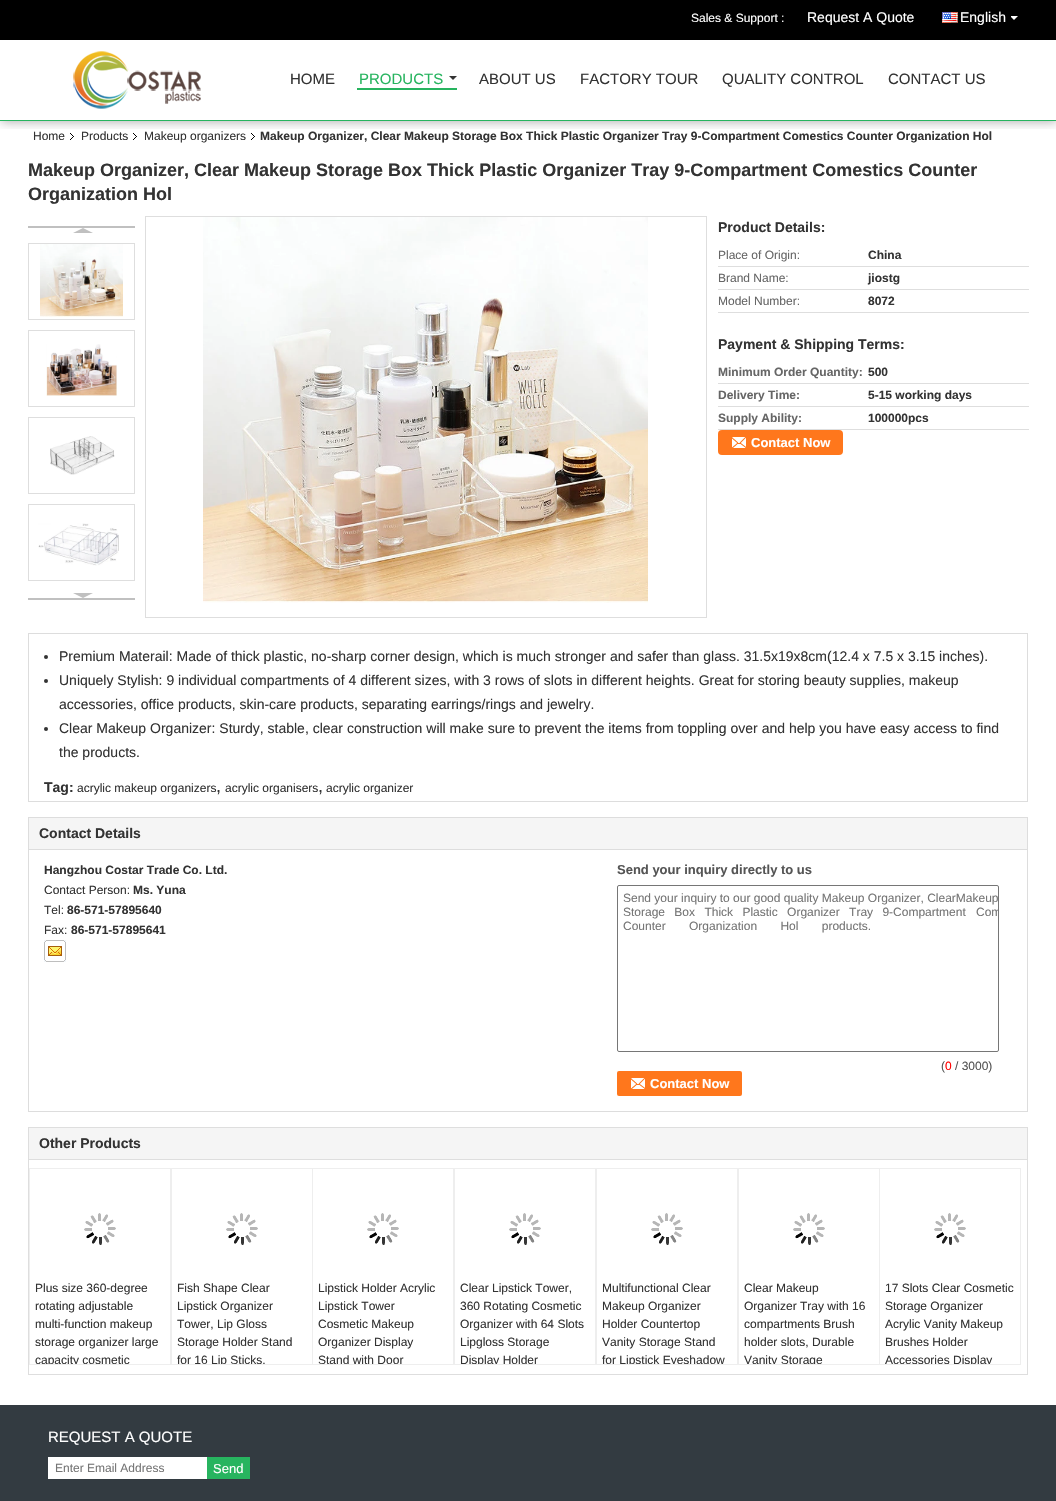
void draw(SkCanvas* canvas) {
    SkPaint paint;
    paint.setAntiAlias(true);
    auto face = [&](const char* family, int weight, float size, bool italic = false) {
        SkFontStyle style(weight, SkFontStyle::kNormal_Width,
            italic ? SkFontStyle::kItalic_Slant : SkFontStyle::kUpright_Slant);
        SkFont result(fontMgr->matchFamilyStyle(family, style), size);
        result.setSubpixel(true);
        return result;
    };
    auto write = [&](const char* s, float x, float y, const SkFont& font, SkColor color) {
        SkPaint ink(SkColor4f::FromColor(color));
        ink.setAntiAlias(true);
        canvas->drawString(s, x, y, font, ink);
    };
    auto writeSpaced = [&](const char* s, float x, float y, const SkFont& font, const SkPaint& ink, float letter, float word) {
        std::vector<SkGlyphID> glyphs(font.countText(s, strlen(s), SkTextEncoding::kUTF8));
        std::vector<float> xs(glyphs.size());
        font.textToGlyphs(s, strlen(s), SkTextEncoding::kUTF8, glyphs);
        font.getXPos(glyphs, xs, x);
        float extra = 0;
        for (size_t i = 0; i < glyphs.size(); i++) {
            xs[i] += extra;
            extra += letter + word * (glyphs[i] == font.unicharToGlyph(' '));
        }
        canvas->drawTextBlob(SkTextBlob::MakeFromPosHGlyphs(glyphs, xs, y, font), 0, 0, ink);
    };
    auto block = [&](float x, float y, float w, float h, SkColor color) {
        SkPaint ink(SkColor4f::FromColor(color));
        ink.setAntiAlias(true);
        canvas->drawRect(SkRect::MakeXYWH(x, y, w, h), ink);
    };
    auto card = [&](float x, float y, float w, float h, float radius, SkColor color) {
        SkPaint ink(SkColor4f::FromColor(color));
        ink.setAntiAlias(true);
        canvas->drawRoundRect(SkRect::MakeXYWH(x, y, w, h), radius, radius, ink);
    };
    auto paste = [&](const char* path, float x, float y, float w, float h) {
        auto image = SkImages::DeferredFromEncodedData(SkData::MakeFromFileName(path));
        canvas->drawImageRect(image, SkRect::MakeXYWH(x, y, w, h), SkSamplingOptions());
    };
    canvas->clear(SK_ColorWHITE);
    canvas->save();
    canvas->clipRect(SkRect::MakeXYWH(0, 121, 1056, 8));
    paint.setColor(SkColorSetARGB(77, 0, 0, 0));
    paint.setMaskFilter(SkMaskFilter::MakeBlur(kNormal_SkBlurStyle, 5));
    canvas->drawRect(SkRect::MakeXYWH(1, 1, 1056, 121), paint);
    paint.setMaskFilter(nullptr);
    canvas->restore();
    block(0, 120, 1056, 1, SkColorSetRGB(39, 180, 95));
    block(0, 0, 1056, 40, SK_ColorBLACK);
    auto kFont1 = face("Liberation Sans", 400, 12);
    write("Sales & Support :", 691, 22, kFont1, SK_ColorWHITE);
    auto kFont2 = face("Liberation Sans", 400, 14);
    write("Request A Quote", 807, 22, kFont2, SK_ColorWHITE);
    paste("pic1.png", 942, 12, 16, 11);
    write("English", 960, 22, kFont2, SK_ColorWHITE);
    paste("pic2.png", 1011, 16, 7, 4);
    paste("pic3.png", 73, 51, 128, 58);
    auto kFont3 = face("Liberation Sans", 400, 15);
    write("HOME", 290, 84, kFont3, SkColorSetRGB(51, 51, 51));
    block(357, 88, 100, 2, SkColorSetRGB(39, 180, 95));
    write("PRODUCTS", 359, 84, kFont3, SkColorSetRGB(39, 180, 95));
    paint.setColor(SkColorSetRGB(51, 51, 51));
    canvas->drawPath(SkPathBuilder().moveTo(449, 76).lineTo(457, 76).lineTo(453, 80).close().detach(), paint);
    write("ABOUT US", 479, 84, kFont3, SkColorSetRGB(51, 51, 51));
    write("FACTORY TOUR", 580, 84, kFont3, SkColorSetRGB(51, 51, 51));
    write("QUALITY CONTROL", 722, 84, kFont3, SkColorSetRGB(51, 51, 51));
    write("CONTACT US", 888, 84, kFont3, SkColorSetRGB(51, 51, 51));
    write("Home", 33, 140, kFont1, SkColorSetRGB(51, 51, 51));
    paste("pic4.png", 70, 133, 4, 7);
    write("Products", 81, 140, kFont1, SkColorSetRGB(51, 51, 51));
    paste("pic4.png", 133, 133, 4, 7);
    write("Makeup organizers", 144, 140, kFont1, SkColorSetRGB(51, 51, 51));
    paste("pic4.png", 251, 133, 4, 7);
    auto kFont4 = face("Liberation Sans", 700, 12);
    write("Makeup Organizer, Clear Makeup Storage Box Thick Plastic Organizer Tray 9-Compartment Comestics Counter Organization Hol", 260, 140, kFont4, SkColorSetRGB(51, 51, 51));
    auto kFont5 = face("Liberation Sans", 700, 18);
    write("Makeup Organizer, Clear Makeup Storage Box Thick Plastic Organizer Tray 9-Compartment Comestics Counter", 28, 176, kFont5, SkColorSetRGB(51, 51, 51));
    write("Organization Hol", 28, 200, kFont5, SkColorSetRGB(51, 51, 51));
    block(28, 226, 107, 2, SkColorSetRGB(192, 192, 192));
    paint.setColor(SkColorSetRGB(192, 192, 192));
    canvas->drawPath(SkPathBuilder().moveTo(93, 233).lineTo(73, 233).lineTo(83, 228).close().detach(), paint);
    paint.setStyle(SkPaint::kStroke_Style);
    paint.setStrokeWidth(1);
    paint.setColor(SkColorSetRGB(222, 222, 222));
    canvas->drawRect(SkRect::MakeXYWH(28.5f, 243.5f, 106, 76), paint);
    paste("pic5.png", 40, 244, 83, 73);
    canvas->drawRect(SkRect::MakeXYWH(28.5f, 330.5f, 106, 76), paint);
    paste("pic6.png", 46, 344, 71, 52);
    canvas->drawRect(SkRect::MakeXYWH(28.5f, 417.5f, 106, 76), paint);
    paste("pic7.png", 50, 436, 65, 39);
    canvas->drawRect(SkRect::MakeXYWH(28.5f, 504.5f, 106, 76), paint);
    paste("pic8.png", 38, 523, 81, 43);
    block(28, 598, 107, 2, SkColorSetRGB(192, 192, 192));
    paint.setStyle(SkPaint::kFill_Style);
    paint.setColor(SkColorSetRGB(192, 192, 192));
    canvas->drawPath(SkPathBuilder().moveTo(73, 593).lineTo(93, 593).lineTo(83, 598).close().detach(), paint);
    paint.setStyle(SkPaint::kStroke_Style);
    paint.setColor(SkColorSetRGB(222, 222, 222));
    canvas->drawRect(SkRect::MakeXYWH(145.5f, 216.5f, 561, 401), paint);
    paste("pic9.png", 203, 217, 445, 386);
    auto kFont6 = face("Liberation Sans", 700, 14);
    write("Product Details:", 718, 232, kFont6, SkColorSetRGB(51, 51, 51));
    write("Place of Origin:", 718, 259, kFont1, SkColorSetRGB(102, 102, 102));
    block(718, 266, 311, 1, SkColorSetRGB(222, 222, 222));
    write("China", 868, 259, kFont4, SkColorSetRGB(51, 51, 51));
    write("Brand Name:", 718, 282, kFont1, SkColorSetRGB(102, 102, 102));
    block(718, 289, 311, 1, SkColorSetRGB(222, 222, 222));
    write("jiostg", 868, 282, kFont4, SkColorSetRGB(51, 51, 51));
    write("Model Number:", 718, 305, kFont1, SkColorSetRGB(102, 102, 102));
    block(718, 312, 311, 1, SkColorSetRGB(222, 222, 222));
    write("8072", 868, 305, kFont4, SkColorSetRGB(51, 51, 51));
    write("Payment & Shipping Terms:", 718, 349, kFont6, SkColorSetRGB(51, 51, 51));
    write("Minimum Order Quantity:", 718, 376, kFont4, SkColorSetRGB(102, 102, 102));
    block(718, 383, 311, 1, SkColorSetRGB(222, 222, 222));
    write("500", 868, 376, kFont4, SkColorSetRGB(51, 51, 51));
    write("Delivery Time:", 718, 399, kFont4, SkColorSetRGB(102, 102, 102));
    block(718, 406, 311, 1, SkColorSetRGB(222, 222, 222));
    write("5-15 working days", 868, 399, kFont4, SkColorSetRGB(51, 51, 51));
    write("Supply Ability:", 718, 422, kFont4, SkColorSetRGB(102, 102, 102));
    block(718, 429, 311, 1, SkColorSetRGB(222, 222, 222));
    write("100000pcs", 868, 422, kFont4, SkColorSetRGB(51, 51, 51));
    card(718, 430, 125, 25, 4, SkColorSetRGB(255, 119, 28));
    paste("pic10.png", 732, 437, 14, 11);
    auto kFont7 = face("Liberation Sans", 700, 13);
    write("Contact Now", 751, 447, kFont7, SK_ColorWHITE);
    paint.setColor(SkColorSetRGB(221, 221, 221));
    canvas->drawRect(SkRect::MakeXYWH(28.5f, 633.5f, 999, 168), paint);
    paint.setStyle(SkPaint::kFill_Style);
    paint.setColor(SkColorSetRGB(51, 51, 51));
    canvas->drawCircle(46, 657, 2, paint);
    write("Premium Materail: Made of thick plastic, no-sharp corner design, which is much stronger and safer than glass. 31.5x19x8cm(12.4 x 7.5 x 3.15 inches).", 59, 661, kFont2, SkColorSetRGB(51, 51, 51));
    canvas->drawCircle(46, 681, 2, paint);
    write("Uniquely Stylish: 9 individual compartments of 4 different sizes, with 3 rows of slots in different heights. Great for storing beauty supplies, makeup", 59, 685, kFont2, SkColorSetRGB(51, 51, 51));
    write("accessories, office products, skin-care products, separating earrings/rings and jewelry.", 59, 709, kFont2, SkColorSetRGB(51, 51, 51));
    canvas->drawCircle(46, 729, 2, paint);
    write("Clear Makeup Organizer: Sturdy, stable, clear construction will make sure to prevent the items from toppling over and help you have easy access to find", 59, 733, kFont2, SkColorSetRGB(51, 51, 51));
    write("the products.", 59, 757, kFont2, SkColorSetRGB(51, 51, 51));
    write("Tag:", 44, 792, kFont6, SkColorSetRGB(51, 51, 51));
    write("acrylic makeup organizers", 77, 792, kFont1, SkColorSetRGB(51, 51, 51));
    auto kFont8 = face("Liberation Sans", 400, 18);
    write(",", 216, 792, kFont8, SkColorSetRGB(51, 51, 51));
    write("acrylic organisers", 225, 792, kFont1, SkColorSetRGB(51, 51, 51));
    write(",", 318, 792, kFont8, SkColorSetRGB(51, 51, 51));
    write("acrylic organizer", 326, 792, kFont1, SkColorSetRGB(51, 51, 51));
    paint.setColor(SkColorSetRGB(245, 245, 245));
    canvas->drawRect(SkRect::MakeXYWH(28.5f, 817.5f, 999, 32), paint);
    paint.setStyle(SkPaint::kStroke_Style);
    paint.setColor(SkColorSetRGB(221, 221, 221));
    canvas->drawRect(SkRect::MakeXYWH(28.5f, 817.5f, 999, 32), paint);
    write("Contact Details", 39, 838, kFont6, SkColorSetRGB(51, 51, 51));
    block(1027, 850, 1, 262, SkColorSetRGB(221, 221, 221));
    block(28, 1111, 1000, 1, SkColorSetRGB(221, 221, 221));
    block(28, 850, 1, 262, SkColorSetRGB(221, 221, 221));
    write("Hangzhou Costar Trade Co. Ltd.", 44, 874, kFont4, SkColorSetRGB(51, 51, 51));
    write("Contact Person:", 44, 894, kFont1, SkColorSetRGB(51, 51, 51));
    write("Ms. Yuna", 133, 894, kFont4, SkColorSetRGB(51, 51, 51));
    write("Tel:", 44, 914, kFont1, SkColorSetRGB(51, 51, 51));
    write("86-571-57895640", 67, 914, kFont4, SkColorSetRGB(51, 51, 51));
    write("Fax:", 44, 934, kFont1, SkColorSetRGB(51, 51, 51));
    write("86-571-57895641", 71, 934, kFont4, SkColorSetRGB(51, 51, 51));
    paste("pic11.png", 44, 940, 22, 22);
    write("Send your inquiry directly to us", 617, 874, kFont7, SkColorSetRGB(85, 85, 85));
    paint.setColor(SkColorSetRGB(118, 118, 118));
    canvas->drawRoundRect(SkRect::MakeXYWH(617.5f, 885.5f, 381, 166), 1.5f, 1.5f, paint);
    write("Send your inquiry to our good quality Makeup Organizer, ClearMakeup", 623, 902, kFont1, SkColorSetRGB(117, 117, 117));
    paint.setStyle(SkPaint::kFill_Style);
    paint.setColor(SkColorSetRGB(117, 117, 117));
    writeSpaced("Storage Box Thick Plastic Organizer Tray 9-Compartment", 623, 916, kFont1, paint, 0, 6);
    canvas->save();
    canvas->clipRect(SkRect::MakeXYWH(618, 886, 380, 165));
    write("Com", 976, 916, kFont1, SkColorSetRGB(117, 117, 117));
    canvas->restore();
    writeSpaced("Counter Organization Hol products.", 623, 930, kFont1, paint, 0, 20);
    write("(", 941, 1070, kFont1, SkColorSetRGB(85, 85, 85));
    write("0", 945, 1070, kFont1, SkColorSetRGB(255, 0, 0));
    write("/ 3000)", 955, 1070, kFont1, SkColorSetRGB(85, 85, 85));
    card(617, 1071, 125, 25, 2, SkColorSetRGB(255, 119, 28));
    paste("pic10.png", 631, 1078, 14, 11);
    write("Contact Now", 650, 1088, kFont7, SK_ColorWHITE);
    paint.setStyle(SkPaint::kStroke_Style);
    paint.setColor(SkColorSetRGB(222, 222, 222));
    canvas->drawRect(SkRect::MakeXYWH(28.5f, 1127.5f, 999, 247), paint);
    block(29, 1128, 998, 31, SkColorSetRGB(245, 245, 245));
    block(29, 1159, 998, 1, SkColorSetRGB(222, 222, 222));
    write("Other Products", 39, 1148, kFont6, SkColorSetRGB(51, 51, 51));
    paint.setColor(SkColorSetRGB(238, 238, 238));
    canvas->drawRect(SkRect::MakeXYWH(29.5f, 1168.5f, 141, 196), paint);
    paste("pic12.png", 84, 1213, 32, 32);
    write("Plus size 360-degree", 35, 1292, kFont1, SkColorSetRGB(51, 51, 51));
    write("rotating adjustable", 35, 1310, kFont1, SkColorSetRGB(51, 51, 51));
    write("multi-function makeup", 35, 1328, kFont1, SkColorSetRGB(51, 51, 51));
    write("storage organizer large", 35, 1346, kFont1, SkColorSetRGB(51, 51, 51));
    canvas->save();
    canvas->clipRect(SkRect::MakeXYWH(30, 1169, 140, 195));
    write("capacity cosmetic", 35, 1364, kFont1, SkColorSetRGB(51, 51, 51));
    canvas->restore();
    canvas->drawRect(SkRect::MakeXYWH(171.5f, 1168.5f, 141, 196), paint);
    paste("pic12.png", 226, 1213, 32, 32);
    write("Fish Shape Clear", 177, 1292, kFont1, SkColorSetRGB(51, 51, 51));
    write("Lipstick Organizer", 177, 1310, kFont1, SkColorSetRGB(51, 51, 51));
    write("Tower, Lip Gloss", 177, 1328, kFont1, SkColorSetRGB(51, 51, 51));
    write("Storage Holder Stand", 177, 1346, kFont1, SkColorSetRGB(51, 51, 51));
    canvas->save();
    canvas->clipRect(SkRect::MakeXYWH(172, 1169, 140, 195));
    write("for 16 Lip Sticks,", 177, 1364, kFont1, SkColorSetRGB(51, 51, 51));
    canvas->restore();
    block(312, 1169, 1, 196, SK_ColorWHITE);
    canvas->drawRect(SkRect::MakeXYWH(312.5f, 1168.5f, 141, 196), paint);
    paste("pic12.png", 367, 1213, 32, 32);
    write("Lipstick Holder Acrylic", 318, 1292, kFont1, SkColorSetRGB(51, 51, 51));
    write("Lipstick Tower", 318, 1310, kFont1, SkColorSetRGB(51, 51, 51));
    write("Cosmetic Makeup", 318, 1328, kFont1, SkColorSetRGB(51, 51, 51));
    write("Organizer Display", 318, 1346, kFont1, SkColorSetRGB(51, 51, 51));
    canvas->save();
    canvas->clipRect(SkRect::MakeXYWH(313, 1169, 140, 195));
    write("Stand with Door", 318, 1364, kFont1, SkColorSetRGB(51, 51, 51));
    canvas->restore();
    canvas->drawRect(SkRect::MakeXYWH(454.5f, 1168.5f, 141, 196), paint);
    paste("pic12.png", 509, 1213, 32, 32);
    write("Clear Lipstick Tower,", 460, 1292, kFont1, SkColorSetRGB(51, 51, 51));
    write("360 Rotating Cosmetic", 460, 1310, kFont1, SkColorSetRGB(51, 51, 51));
    write("Organizer with 64 Slots", 460, 1328, kFont1, SkColorSetRGB(51, 51, 51));
    write("Lipgloss Storage", 460, 1346, kFont1, SkColorSetRGB(51, 51, 51));
    canvas->save();
    canvas->clipRect(SkRect::MakeXYWH(455, 1169, 140, 195));
    write("Display Holder", 460, 1364, kFont1, SkColorSetRGB(51, 51, 51));
    canvas->restore();
    canvas->drawRect(SkRect::MakeXYWH(596.5f, 1168.5f, 141, 196), paint);
    paste("pic12.png", 651, 1213, 32, 32);
    write("Multifunctional Clear", 602, 1292, kFont1, SkColorSetRGB(51, 51, 51));
    write("Makeup Organizer", 602, 1310, kFont1, SkColorSetRGB(51, 51, 51));
    write("Holder Countertop", 602, 1328, kFont1, SkColorSetRGB(51, 51, 51));
    write("Vanity Storage Stand", 602, 1346, kFont1, SkColorSetRGB(51, 51, 51));
    canvas->save();
    canvas->clipRect(SkRect::MakeXYWH(597, 1169, 140, 195));
    write("for Lipstick Eyeshadow", 602, 1364, kFont1, SkColorSetRGB(51, 51, 51));
    canvas->restore();
    canvas->drawRect(SkRect::MakeXYWH(738.5f, 1168.5f, 141, 196), paint);
    paste("pic12.png", 793, 1213, 32, 32);
    write("Clear Makeup", 744, 1292, kFont1, SkColorSetRGB(51, 51, 51));
    write("Organizer Tray with 16", 744, 1310, kFont1, SkColorSetRGB(51, 51, 51));
    write("compartments Brush", 744, 1328, kFont1, SkColorSetRGB(51, 51, 51));
    write("holder slots, Durable", 744, 1346, kFont1, SkColorSetRGB(51, 51, 51));
    canvas->save();
    canvas->clipRect(SkRect::MakeXYWH(739, 1169, 140, 195));
    write("Vanity Storage", 744, 1364, kFont1, SkColorSetRGB(51, 51, 51));
    canvas->restore();
    block(879, 1169, 1, 196, SK_ColorWHITE);
    canvas->drawRect(SkRect::MakeXYWH(879.5f, 1168.5f, 141, 196), paint);
    paste("pic12.png", 934, 1213, 32, 32);
    write("17 Slots Clear Cosmetic", 885, 1292, kFont1, SkColorSetRGB(51, 51, 51));
    write("Storage Organizer", 885, 1310, kFont1, SkColorSetRGB(51, 51, 51));
    write("Acrylic Vanity Makeup", 885, 1328, kFont1, SkColorSetRGB(51, 51, 51));
    write("Brushes Holder", 885, 1346, kFont1, SkColorSetRGB(51, 51, 51));
    canvas->save();
    canvas->clipRect(SkRect::MakeXYWH(880, 1169, 140, 195));
    write("Accessories Display", 885, 1364, kFont1, SkColorSetRGB(51, 51, 51));
    canvas->restore();
    block(0, 1405, 1056, 96, SkColorSetRGB(51, 59, 65));
    write("REQUEST A QUOTE", 48, 1442, kFont3, SK_ColorWHITE);
    block(48, 1457, 159, 22, SK_ColorWHITE);
    write("Enter Email Address", 55, 1472, kFont1, SkColorSetRGB(117, 117, 117));
    block(207, 1457, 43, 22, SkColorSetRGB(39, 180, 95));
    auto kFont9 = face("Liberation Sans", 400, 13);
    write("Send", 213, 1473, kFont9, SK_ColorWHITE);
}
